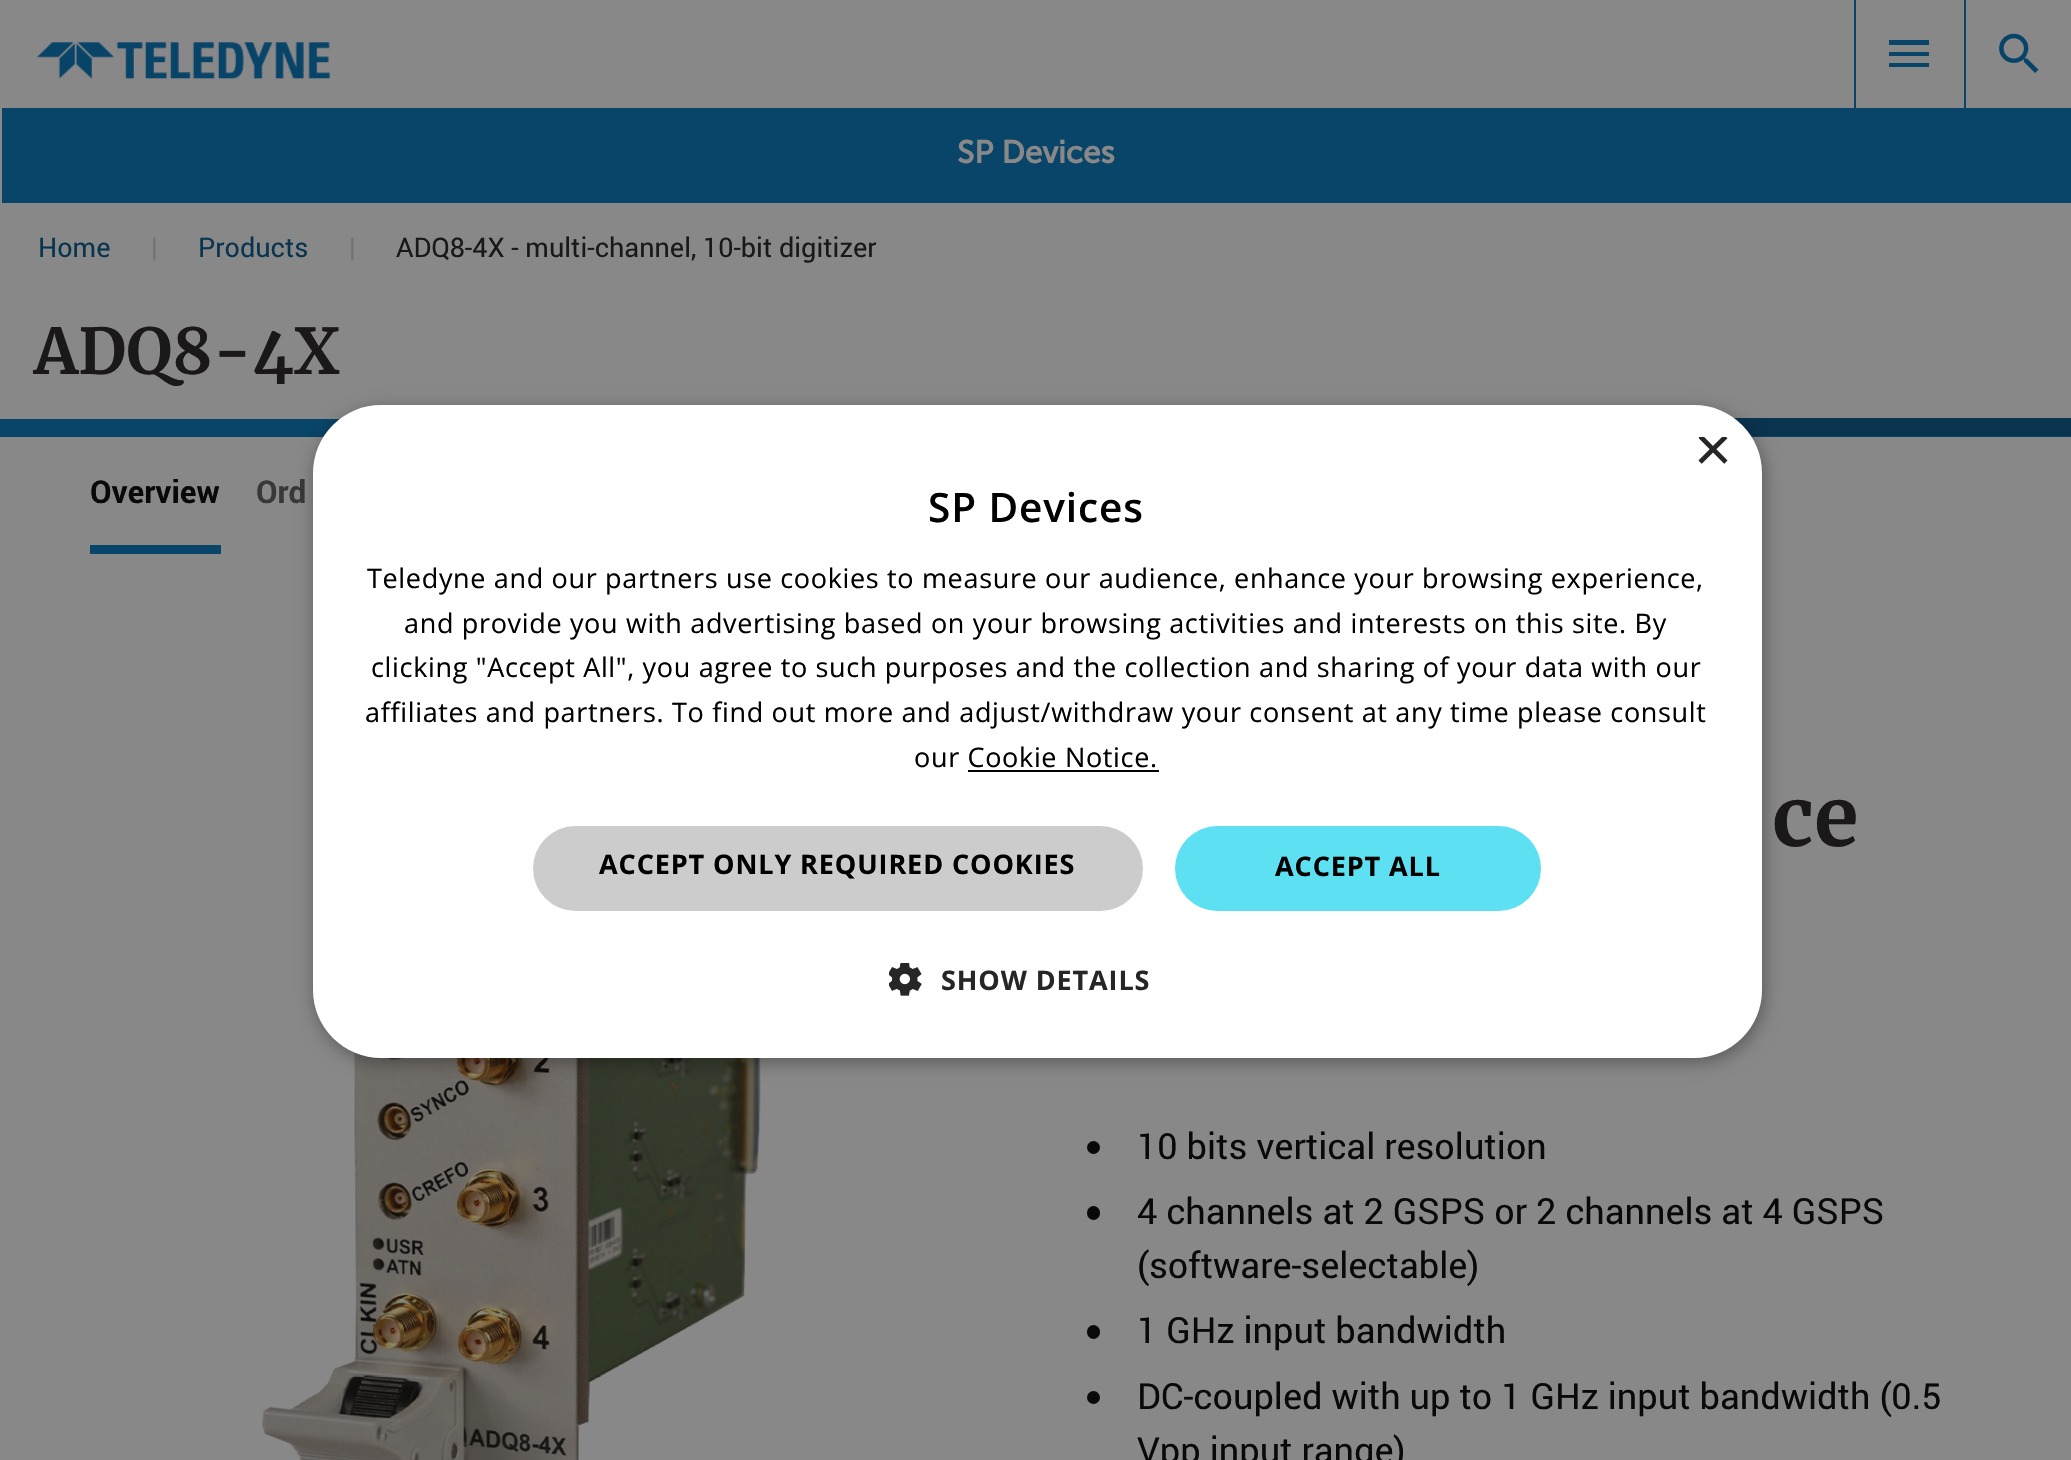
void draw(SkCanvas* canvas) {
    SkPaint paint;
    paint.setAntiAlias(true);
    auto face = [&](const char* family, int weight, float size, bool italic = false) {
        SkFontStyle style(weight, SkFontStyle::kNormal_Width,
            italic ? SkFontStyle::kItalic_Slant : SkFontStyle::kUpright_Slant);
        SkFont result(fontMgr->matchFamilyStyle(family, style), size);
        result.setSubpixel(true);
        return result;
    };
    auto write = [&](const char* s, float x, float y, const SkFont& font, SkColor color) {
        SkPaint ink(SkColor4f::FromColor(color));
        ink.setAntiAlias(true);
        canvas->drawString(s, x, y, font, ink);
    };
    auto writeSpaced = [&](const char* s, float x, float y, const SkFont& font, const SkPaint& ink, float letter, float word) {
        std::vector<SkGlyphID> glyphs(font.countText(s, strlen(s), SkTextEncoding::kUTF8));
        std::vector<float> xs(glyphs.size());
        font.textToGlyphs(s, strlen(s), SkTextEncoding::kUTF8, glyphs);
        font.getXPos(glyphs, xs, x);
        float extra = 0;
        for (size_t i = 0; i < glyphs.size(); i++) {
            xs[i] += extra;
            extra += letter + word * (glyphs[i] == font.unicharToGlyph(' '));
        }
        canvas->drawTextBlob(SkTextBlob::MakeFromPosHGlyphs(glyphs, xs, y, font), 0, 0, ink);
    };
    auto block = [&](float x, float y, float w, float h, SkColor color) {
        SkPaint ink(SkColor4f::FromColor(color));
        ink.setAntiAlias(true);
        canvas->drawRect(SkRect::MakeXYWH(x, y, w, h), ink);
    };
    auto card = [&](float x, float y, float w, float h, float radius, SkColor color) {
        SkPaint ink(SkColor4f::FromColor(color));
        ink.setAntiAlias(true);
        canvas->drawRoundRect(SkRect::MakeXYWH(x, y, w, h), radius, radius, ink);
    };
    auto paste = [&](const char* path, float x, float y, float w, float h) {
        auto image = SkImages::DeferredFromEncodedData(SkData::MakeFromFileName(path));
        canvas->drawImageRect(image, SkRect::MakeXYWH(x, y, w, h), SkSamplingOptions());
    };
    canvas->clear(SkColorSetRGB(136, 136, 136));
    paste("pic1.png", 36, 42, 294, 37);
    block(1964, 0, 2, 108, SkColorSetRGB(9, 68, 105));
    block(1854, 0, 2, 108, SkColorSetRGB(9, 68, 105));
    paint.setColor(SkColorSetRGB(9, 68, 105));
    canvas->drawPath(SkPathBuilder().moveTo(1889, 40).lineTo(1929, 40).lineTo(1929, 45).lineTo(1889, 45).close().moveTo(1889, 56).lineTo(1889, 52).lineTo(1929, 52).lineTo(1929, 56).close().moveTo(1889, 67).lineTo(1889, 63).lineTo(1929, 63).lineTo(1929, 67).close().detach(), paint);
    paste("pic2.png", 1999, 33, 40, 40);
    block(2, 108, 2069, 95, SkColorSetRGB(9, 68, 105));
    auto kFont1 = face("Museo Sans", 700, 31.5f);
    write("SP Devices", 957, 163, kFont1, SkColorSetRGB(136, 136, 136));
    auto kFont2 = face("Roboto", 400, 27);
    write("Home", 38, 257, kFont2, SkColorSetRGB(9, 52, 79));
    write("|", 151, 257, kFont2, SkColorSetRGB(113, 114, 115));
    write("Products", 198, 257, kFont2, SkColorSetRGB(9, 52, 79));
    write("|", 349, 257, kFont2, SkColorSetRGB(113, 114, 115));
    write("ADQ8-4X - multi-channel, 10-bit digitizer", 396, 257, kFont2, SkColorSetRGB(26, 24, 25));
    block(0, 419, 2071, 18, SkColorSetRGB(9, 68, 105));
    auto kFont3 = face("Merriweather", 700, 63);
    write("ADQ8-4X", 34, 374, kFont3, SkColorSetRGB(26, 24, 25));
    paint.setColor(SkColorSetRGB(9, 52, 79));
    canvas->drawPath(SkPathBuilder().moveTo(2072, 436).lineTo(810, 436).lineTo(828, 418).lineTo(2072, 418).close().detach(), paint);
    block(90, 545, 131, 9, SkColorSetRGB(9, 68, 105));
    auto kFont4 = face("Roboto", 700, 31.5f);
    write("Overview", 90, 503, kFont4, SkColorSetRGB(9, 9, 9));
    write("Ord", 256, 503, kFont4, SkColorSetRGB(56, 56, 56));
    paste("pic3.png", 262, 1052, 500, 408);
    auto kFont5 = face("Merriweather", 700, 81);
    write("ce", 1772, 846, kFont5, SkColorSetRGB(26, 24, 25));
    paint.setColor(SkColorSetRGB(9, 9, 9));
    canvas->drawCircle(1093.5f, 1147.5f, 6.5f, paint);
    auto kFont6 = face("Roboto", 400, 36);
    write("10 bits vertical resolution", 1137, 1159, kFont6, SkColorSetRGB(9, 9, 9));
    card(1087, 1206, 13, 14, 6.5f, SkColorSetRGB(9, 9, 9));
    write("4 channels at 2 GSPS or 2 channels at 4 GSPS", 1137, 1224, kFont6, SkColorSetRGB(9, 9, 9));
    write("(software-selectable)", 1137, 1278, kFont6, SkColorSetRGB(9, 9, 9));
    card(1087, 1325, 13, 14, 6.5f, SkColorSetRGB(9, 9, 9));
    write("1 GHz input bandwidth", 1137, 1343, kFont6, SkColorSetRGB(9, 9, 9));
    canvas->drawCircle(1093.5f, 1397.5f, 6.5f, paint);
    write("DC-coupled with up to 1 GHz input bandwidth (0.5", 1137, 1409, kFont6, SkColorSetRGB(9, 9, 9));
    write("Vpp input range)", 1137, 1463, kFont6, SkColorSetRGB(9, 9, 9));
    paint.setColor(SkColorSetARGB(89, 0, 0, 0));
    paint.setMaskFilter(SkMaskFilter::MakeBlur(kNormal_SkBlurStyle, 9));
    canvas->drawRoundRect(SkRect::MakeXYWH(315, 410, 1449, 652), 68, 68, paint);
    paint.setMaskFilter(nullptr);
    card(313, 405, 1449, 653, 68, SK_ColorWHITE);
    canvas->save();
    canvas->clipRect(SkRect::MakeXYWH(1694, 437, 34, 33));
    auto kFont7 = face("Liberation Sans", 400, 65);
    write("×", 1694, 471, kFont7, SkColorSetRGB(38, 38, 38));
    canvas->restore();
    auto kFont8 = face("Open Sans", 600, 40.5f);
    paint.setColor(SK_ColorBLACK);
    writeSpaced("SP Devices", 928, 522, kFont8, paint, 0.9f, 0);
    auto kFont9 = face("Open Sans", 400, 27);
    writeSpaced("Teledyne and our partners use cookies to measure our audience, enhance your browsing experience,", 367, 588, kFont9, paint, 0.67f, 0);
    writeSpaced("and provide you with advertising based on your browsing activities and interests on this site. By", 404, 633, kFont9, paint, 0.67f, 0);
    writeSpaced("clicking \"Accept All\", you agree to such purposes and the collection and sharing of your data with our", 371, 677, kFont9, paint, 0.67f, 0);
    writeSpaced("affiliates and partners. To find out more and adjust/withdraw your consent at any time please consult", 365, 722, kFont9, paint, 0.67f, 0);
    writeSpaced("our Cookie Notice.", 914, 767, kFont9, paint, 0.67f, 0);
    block(968, 770, 191, 2, SK_ColorBLACK);
    card(533, 826, 610, 85, 42.5f, SkColorSetRGB(204, 204, 204));
    auto kFont10 = face("Open Sans", 700, 27);
    writeSpaced("ACCEPT ONLY REQUIRED COOKIES", 599, 874, kFont10, paint, 0.9f, 0);
    card(1175, 826, 366, 85, 42.5f, SkColorSetRGB(92, 224, 242));
    writeSpaced("ACCEPT ALL", 1275, 876, kFont10, paint, 0.9f, 0);
    paste("pic4.png", 889, 963, 33, 33);
    paint.setColor(SkColorSetRGB(38, 38, 38));
    writeSpaced("SHOW DETAILS", 941, 990, kFont10, paint, 0.9f, 0);
}
